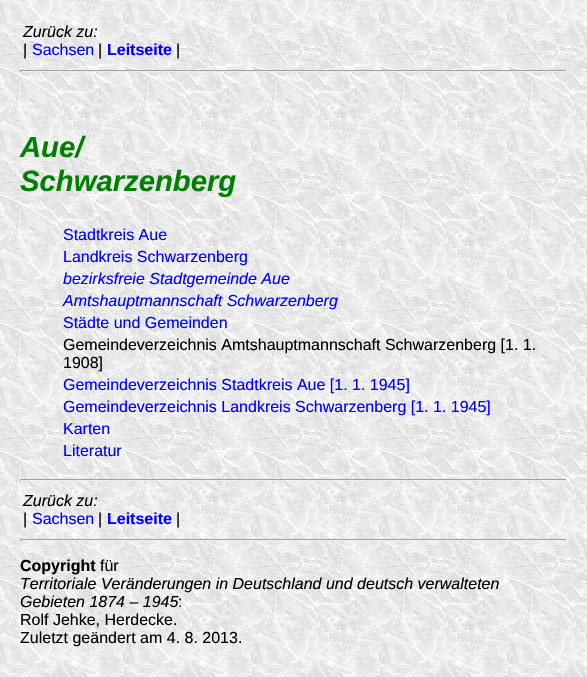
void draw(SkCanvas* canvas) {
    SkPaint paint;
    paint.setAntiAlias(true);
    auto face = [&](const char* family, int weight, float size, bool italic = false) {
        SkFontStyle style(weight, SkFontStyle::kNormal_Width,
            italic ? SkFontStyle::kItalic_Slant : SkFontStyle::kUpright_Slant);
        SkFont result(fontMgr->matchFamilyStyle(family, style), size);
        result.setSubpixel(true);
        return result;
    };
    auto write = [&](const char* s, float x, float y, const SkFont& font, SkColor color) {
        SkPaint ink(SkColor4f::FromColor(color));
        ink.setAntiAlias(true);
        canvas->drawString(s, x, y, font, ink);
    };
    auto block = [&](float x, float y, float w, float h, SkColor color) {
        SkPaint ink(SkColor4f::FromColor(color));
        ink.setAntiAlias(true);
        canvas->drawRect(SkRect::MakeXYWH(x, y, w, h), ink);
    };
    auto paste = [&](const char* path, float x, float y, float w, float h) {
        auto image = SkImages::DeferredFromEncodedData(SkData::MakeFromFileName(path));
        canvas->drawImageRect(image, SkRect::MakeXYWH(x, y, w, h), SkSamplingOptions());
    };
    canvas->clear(SK_ColorWHITE);
    paste("pic1.png", 0, 0, 587, 677);
    auto kFont1 = face("Liberation Sans", 400, 16, true);
    write("Zurück zu:", 23, 37, kFont1, SK_ColorBLACK);
    auto kFont2 = face("Liberation Sans", 400, 16);
    write("|", 23, 55, kFont2, SK_ColorBLACK);
    write("Sachsen", 32, 55, kFont2, SkColorSetRGB(0, 0, 255));
    write("|", 98, 55, kFont2, SK_ColorBLACK);
    auto kFont3 = face("Liberation Sans", 700, 16);
    write("Leitseite", 107, 55, kFont3, SkColorSetRGB(0, 0, 255));
    write("|", 176, 55, kFont2, SK_ColorBLACK);
    block(20, 70, 547, 1, SkColorSetRGB(159, 159, 159));
    block(566, 70, 1, 2, SkColorSetRGB(238, 238, 238));
    block(20, 71, 547, 1, SkColorSetRGB(238, 238, 238));
    block(20, 70, 1, 2, SkColorSetRGB(159, 159, 159));
    auto kFont4 = face("Liberation Sans", 700, 29.25f, true);
    write("Aue/", 20, 157, kFont4, SkColorSetRGB(0, 128, 0));
    write("Schwarzenberg", 20, 191, kFont4, SkColorSetRGB(0, 128, 0));
    write("Stadtkreis Aue", 63, 240, kFont2, SkColorSetRGB(0, 0, 255));
    write("Landkreis Schwarzenberg", 63, 262, kFont2, SkColorSetRGB(0, 0, 255));
    write("bezirksfreie Stadtgemeinde Aue", 63, 284, kFont1, SkColorSetRGB(0, 0, 255));
    write("Amtshauptmannschaft Schwarzenberg", 63, 306, kFont1, SkColorSetRGB(0, 0, 255));
    write("Städte und Gemeinden", 63, 328, kFont2, SkColorSetRGB(0, 0, 255));
    write("Gemeindeverzeichnis Amtshauptmannschaft Schwarzenberg [1. 1.", 63, 350, kFont2, SK_ColorBLACK);
    write("1908]", 63, 368, kFont2, SK_ColorBLACK);
    write("Gemeindeverzeichnis Stadtkreis Aue [1. 1. 1945]", 63, 390, kFont2, SkColorSetRGB(0, 0, 255));
    write("Gemeindeverzeichnis Landkreis Schwarzenberg [1. 1. 1945]", 63, 412, kFont2, SkColorSetRGB(0, 0, 255));
    write("Karten", 63, 434, kFont2, SkColorSetRGB(0, 0, 255));
    write("Literatur", 63, 456, kFont2, SkColorSetRGB(0, 0, 255));
    block(20, 479, 547, 1, SkColorSetRGB(159, 159, 159));
    block(566, 479, 1, 2, SkColorSetRGB(238, 238, 238));
    block(20, 480, 547, 1, SkColorSetRGB(238, 238, 238));
    block(20, 479, 1, 2, SkColorSetRGB(159, 159, 159));
    write("Zurück zu:", 23, 506, kFont1, SK_ColorBLACK);
    write("|", 23, 524, kFont2, SK_ColorBLACK);
    write("Sachsen", 32, 524, kFont2, SkColorSetRGB(0, 0, 255));
    write("|", 98, 524, kFont2, SK_ColorBLACK);
    write("Leitseite", 107, 524, kFont3, SkColorSetRGB(0, 0, 255));
    write("|", 176, 524, kFont2, SK_ColorBLACK);
    block(20, 539, 547, 1, SkColorSetRGB(159, 159, 159));
    block(566, 539, 1, 2, SkColorSetRGB(238, 238, 238));
    block(20, 540, 547, 1, SkColorSetRGB(238, 238, 238));
    block(20, 539, 1, 2, SkColorSetRGB(159, 159, 159));
    write("Copyright", 20, 571, kFont3, SK_ColorBLACK);
    write("für", 100, 571, kFont2, SK_ColorBLACK);
    write("Territoriale Veränderungen in Deutschland und deutsch verwalteten", 20, 589, kFont1, SK_ColorBLACK);
    write("Gebieten 1874 – 1945", 20, 607, kFont1, SK_ColorBLACK);
    write(":", 178, 607, kFont2, SK_ColorBLACK);
    write("Rolf Jehke, Herdecke.", 20, 625, kFont2, SK_ColorBLACK);
    write("Zuletzt geändert am 4. 8. 2013.", 20, 643, kFont2, SK_ColorBLACK);
}
